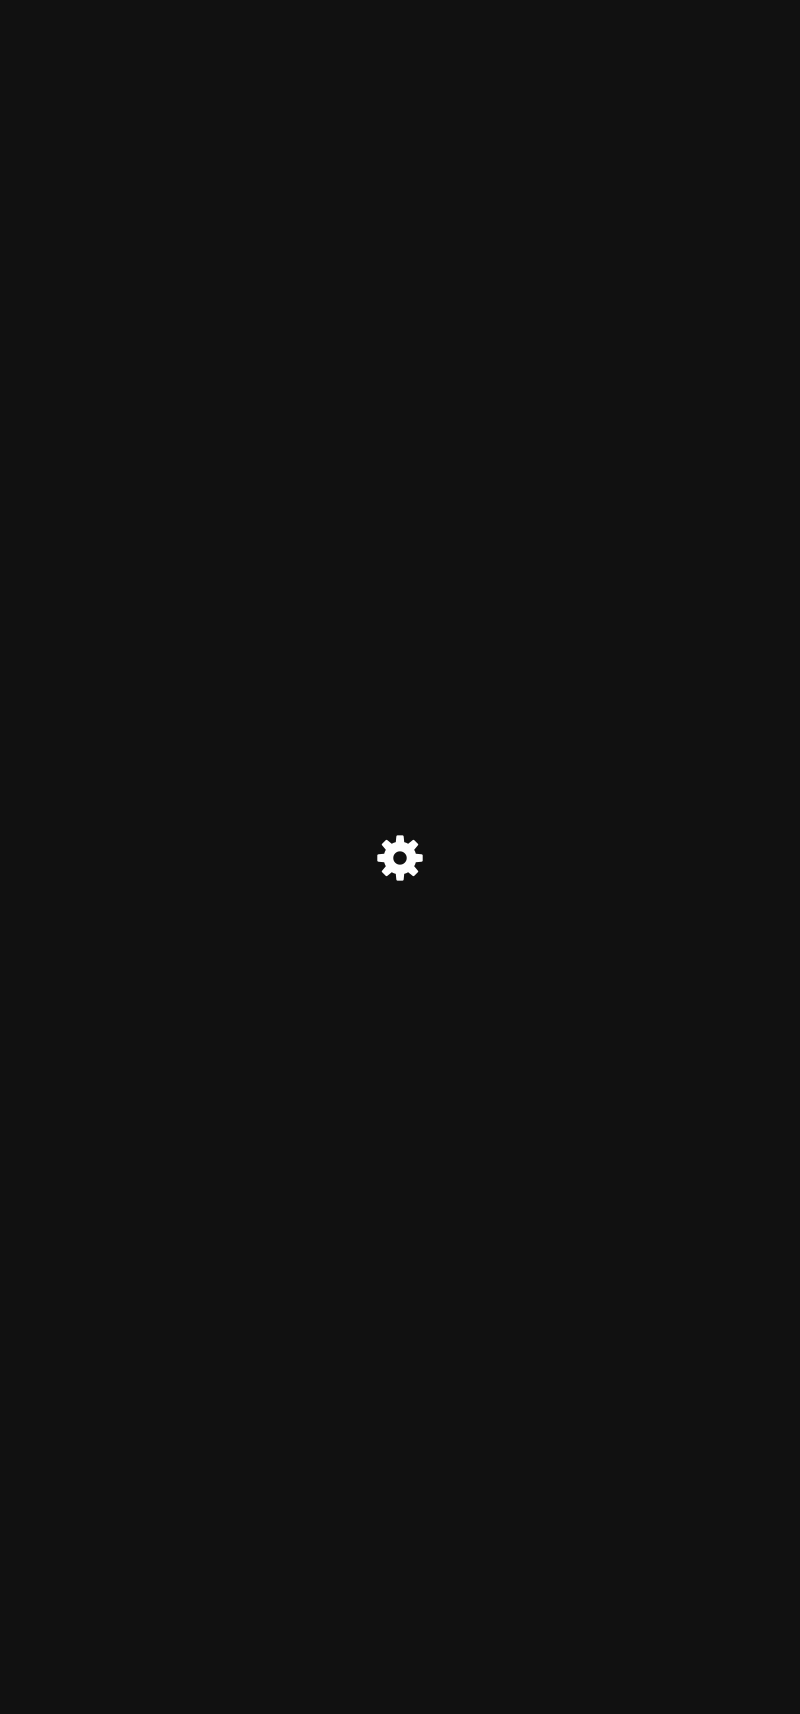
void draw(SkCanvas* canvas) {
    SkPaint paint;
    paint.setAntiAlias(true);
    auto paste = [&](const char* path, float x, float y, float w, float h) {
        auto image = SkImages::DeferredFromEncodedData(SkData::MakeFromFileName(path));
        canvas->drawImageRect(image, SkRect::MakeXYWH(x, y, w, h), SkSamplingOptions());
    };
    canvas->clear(SkColorSetRGB(17, 17, 17));
    paste("pic1.png", 377, 835, 46, 46);
}
